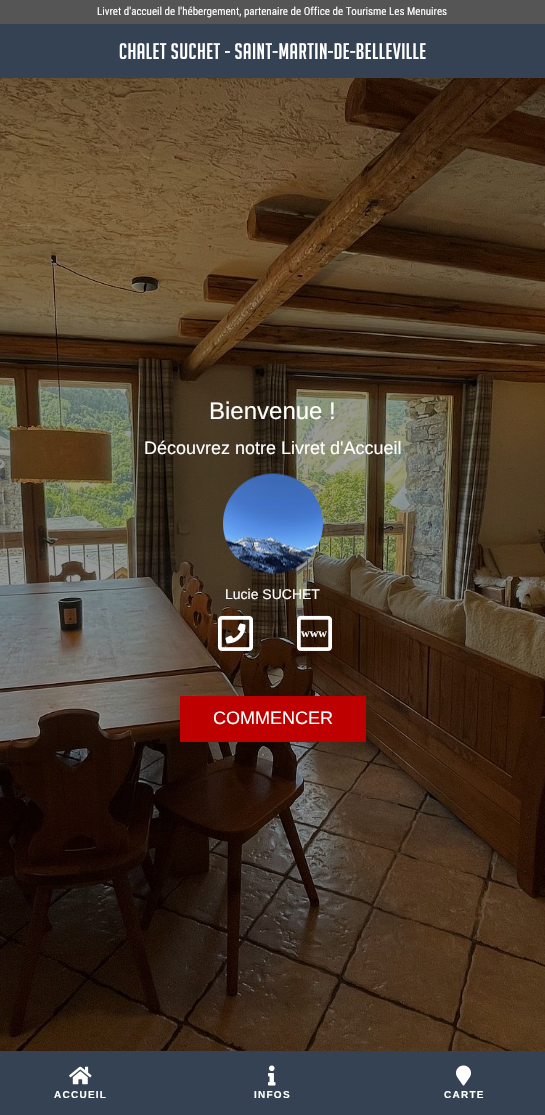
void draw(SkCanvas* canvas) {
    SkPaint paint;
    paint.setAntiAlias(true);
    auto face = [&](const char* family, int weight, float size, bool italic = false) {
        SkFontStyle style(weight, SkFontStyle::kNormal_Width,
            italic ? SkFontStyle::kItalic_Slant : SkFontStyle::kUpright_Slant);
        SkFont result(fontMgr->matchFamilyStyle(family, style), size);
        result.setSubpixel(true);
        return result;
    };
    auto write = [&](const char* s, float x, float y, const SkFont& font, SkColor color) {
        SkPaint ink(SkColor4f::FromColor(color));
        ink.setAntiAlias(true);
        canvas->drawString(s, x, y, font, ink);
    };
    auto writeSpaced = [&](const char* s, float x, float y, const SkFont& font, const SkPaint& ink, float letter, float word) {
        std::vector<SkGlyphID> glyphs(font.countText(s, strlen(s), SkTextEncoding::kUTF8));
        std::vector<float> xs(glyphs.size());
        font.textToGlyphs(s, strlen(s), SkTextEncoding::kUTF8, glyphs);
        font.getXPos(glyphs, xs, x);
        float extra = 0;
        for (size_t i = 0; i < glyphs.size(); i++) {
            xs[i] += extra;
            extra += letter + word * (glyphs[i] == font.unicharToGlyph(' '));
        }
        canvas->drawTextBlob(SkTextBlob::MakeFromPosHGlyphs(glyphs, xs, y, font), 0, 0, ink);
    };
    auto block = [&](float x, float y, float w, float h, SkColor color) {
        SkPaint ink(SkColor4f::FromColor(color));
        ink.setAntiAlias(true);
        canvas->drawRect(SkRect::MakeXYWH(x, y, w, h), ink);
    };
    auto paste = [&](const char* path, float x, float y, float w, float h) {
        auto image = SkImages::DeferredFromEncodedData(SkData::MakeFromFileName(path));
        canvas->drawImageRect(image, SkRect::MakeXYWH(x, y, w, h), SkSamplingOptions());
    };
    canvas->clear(SK_ColorWHITE);
    paste("pic1.png", 0, 78, 545, 973);
    block(0, 0, 545, 24, SkColorSetRGB(85, 85, 85));
    auto kFont1 = face("Roboto Condensed", 400, 11);
    write("Livret d'accueil de l'hébergement, partenaire de Office de Tourisme Les Menuires", 97, 15, kFont1, SK_ColorWHITE);
    block(0, 24, 545, 54, SkColorSetRGB(53, 66, 83));
    auto kFont2 = face("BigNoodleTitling", 400, 22);
    paint.setColor(SK_ColorWHITE);
    writeSpaced("CHALET SUCHET - SAINT-MARTIN-DE-BELLEVILLE", 119, 59, kFont2, paint, 0.5f, 0);
    auto kFont3 = face("Liberation Sans", 400, 24);
    write("Bienvenue !", 209, 419, kFont3, SK_ColorWHITE);
    auto kFont4 = face("Liberation Sans", 400, 18);
    write("Découvrez notre Livret d'Accueil", 144, 454, kFont4, SK_ColorWHITE);
    paste("pic2.png", 223, 473, 100, 101);
    auto kFont5 = face("Liberation Sans", 400, 14);
    write("Lucie SUCHET", 225, 599, kFont5, SK_ColorWHITE);
    paste("pic3.png", 218, 615, 35, 36);
    paste("pic4.png", 297, 615, 35, 36);
    auto kFont6 = face("Liberation Serif", 700, 12);
    write("www", 301, 637, kFont6, SK_ColorWHITE);
    block(180, 696, 186, 46, SkColorSetRGB(191, 0, 0));
    write("COMMENCER", 213, 724, kFont4, SK_ColorWHITE);
    block(0, 1051, 545, 64, SkColorSetRGB(53, 66, 83));
    paste("pic5.png", 69, 1066, 23, 19);
    auto kFont7 = face("Liberation Sans", 700, 10);
    writeSpaced("ACCUEIL", 54, 1098, kFont7, paint, 1.25f, 0);
    paste("pic6.png", 268, 1065, 8, 21);
    writeSpaced("INFOS", 254, 1098, kFont7, paint, 1.25f, 0);
    paste("pic7.png", 456, 1065, 15, 21);
    writeSpaced("CARTE", 444, 1098, kFont7, paint, 1.25f, 0);
}
